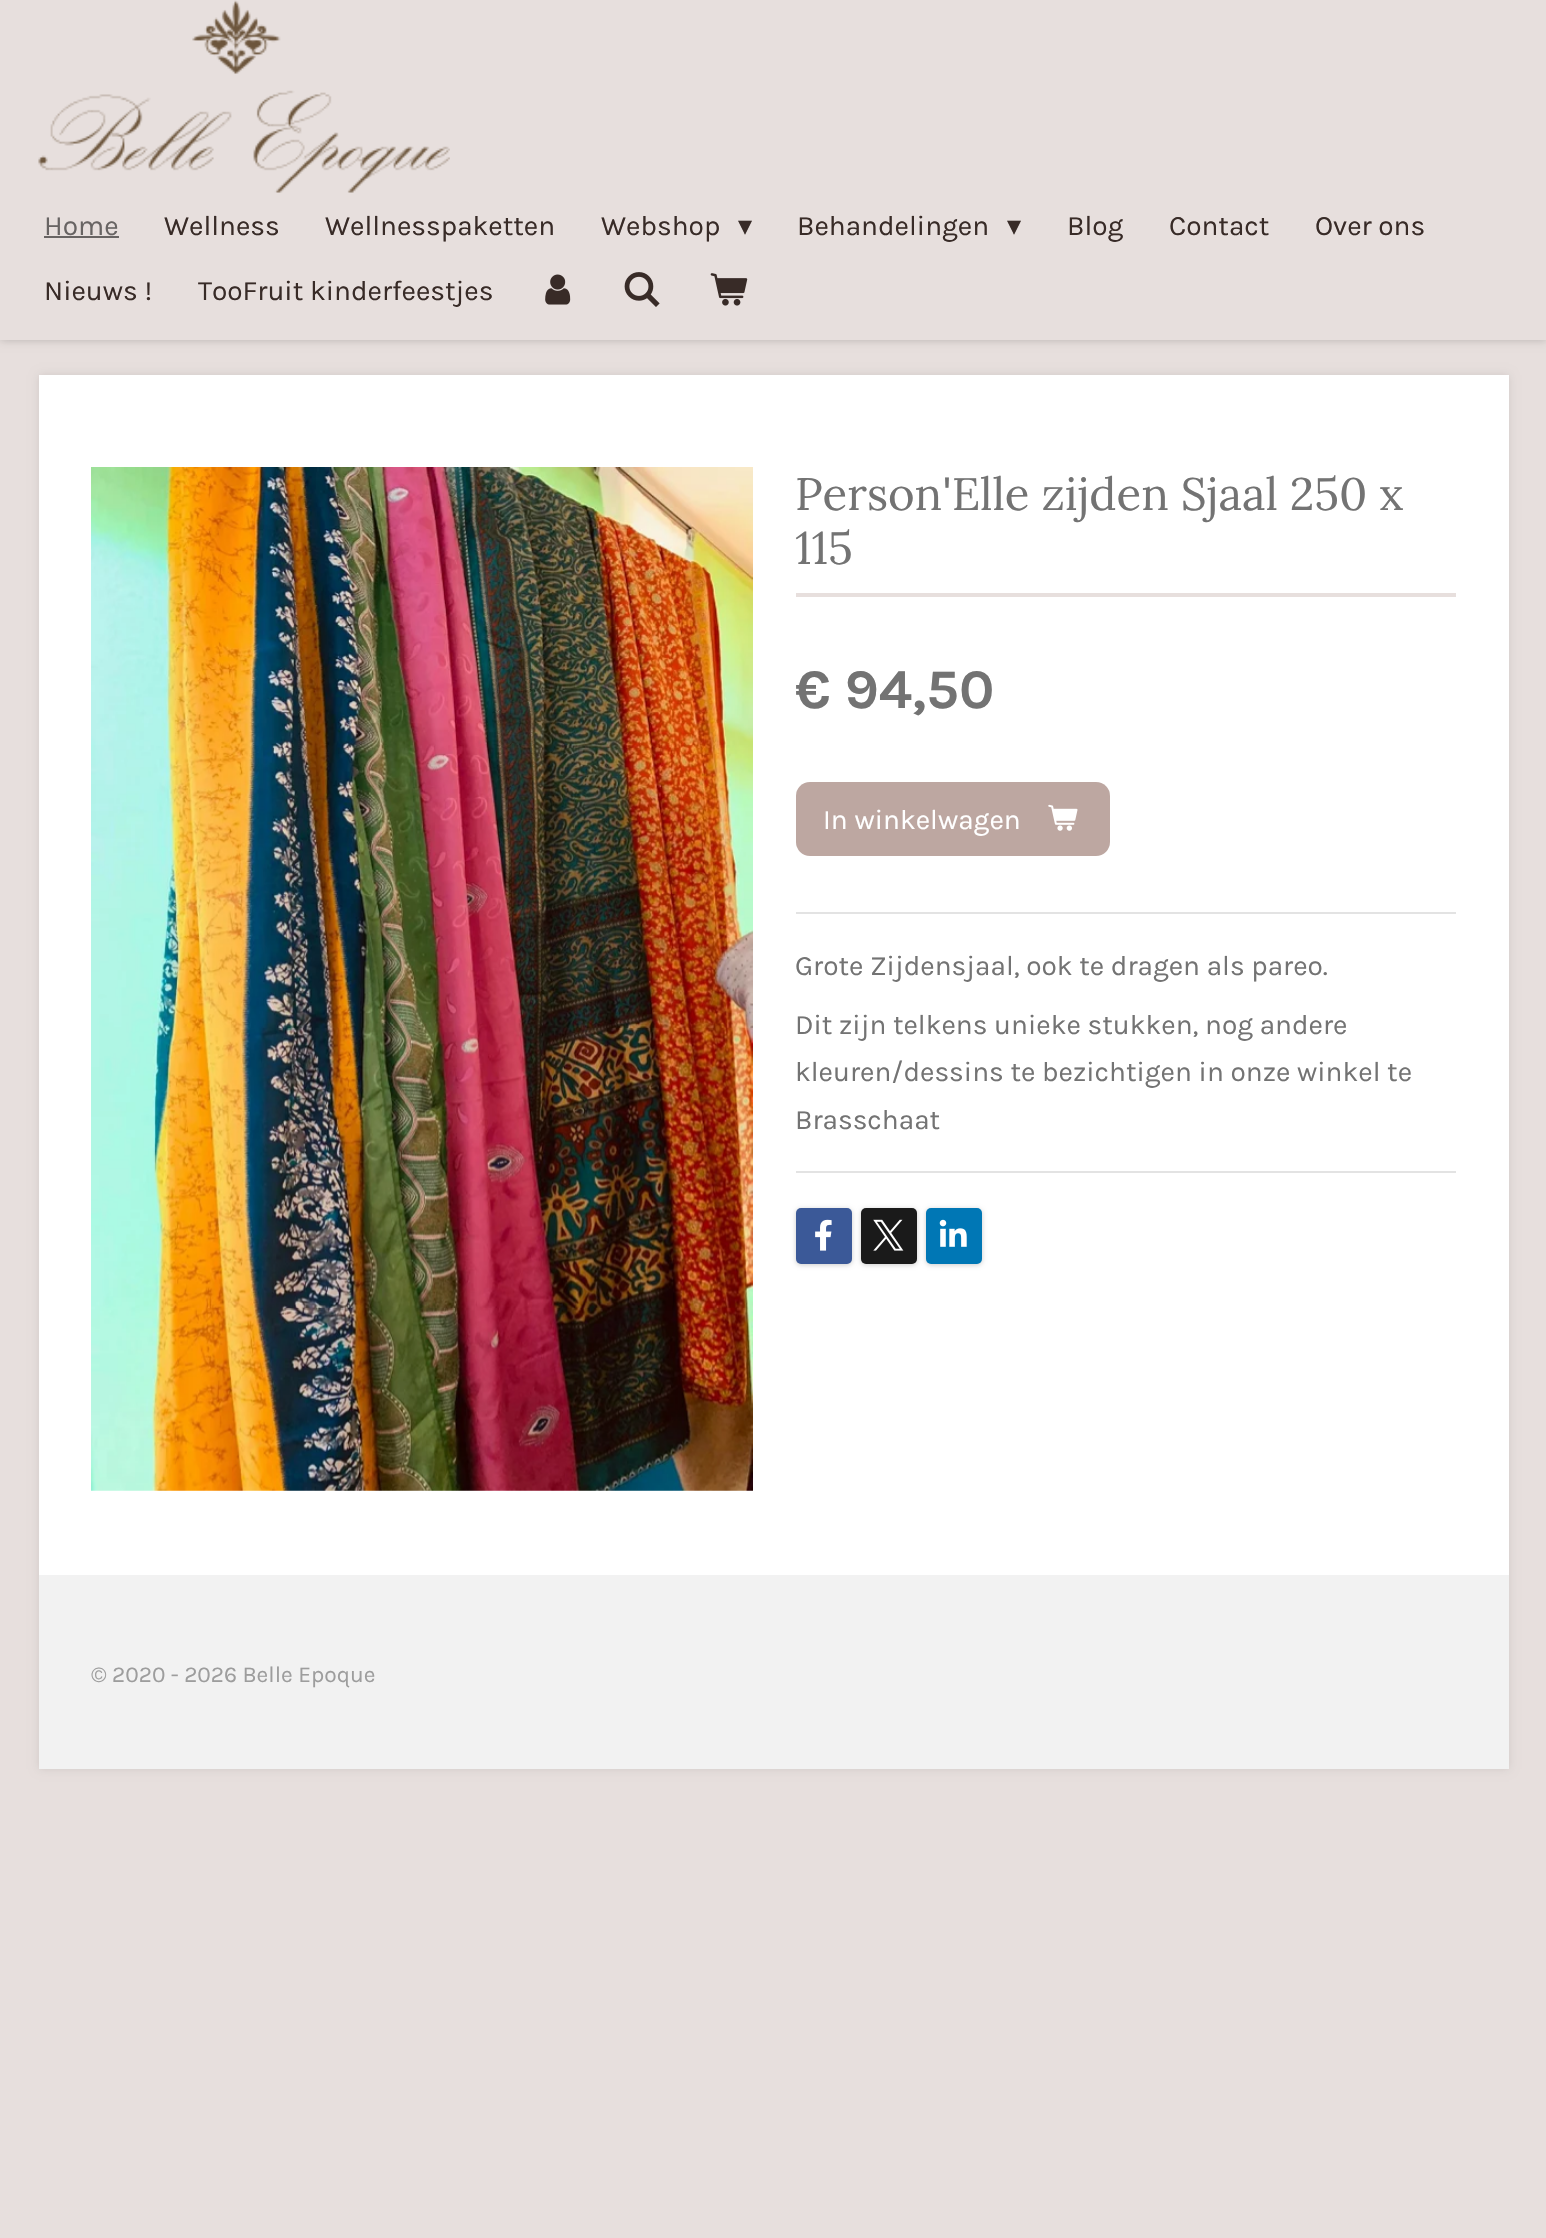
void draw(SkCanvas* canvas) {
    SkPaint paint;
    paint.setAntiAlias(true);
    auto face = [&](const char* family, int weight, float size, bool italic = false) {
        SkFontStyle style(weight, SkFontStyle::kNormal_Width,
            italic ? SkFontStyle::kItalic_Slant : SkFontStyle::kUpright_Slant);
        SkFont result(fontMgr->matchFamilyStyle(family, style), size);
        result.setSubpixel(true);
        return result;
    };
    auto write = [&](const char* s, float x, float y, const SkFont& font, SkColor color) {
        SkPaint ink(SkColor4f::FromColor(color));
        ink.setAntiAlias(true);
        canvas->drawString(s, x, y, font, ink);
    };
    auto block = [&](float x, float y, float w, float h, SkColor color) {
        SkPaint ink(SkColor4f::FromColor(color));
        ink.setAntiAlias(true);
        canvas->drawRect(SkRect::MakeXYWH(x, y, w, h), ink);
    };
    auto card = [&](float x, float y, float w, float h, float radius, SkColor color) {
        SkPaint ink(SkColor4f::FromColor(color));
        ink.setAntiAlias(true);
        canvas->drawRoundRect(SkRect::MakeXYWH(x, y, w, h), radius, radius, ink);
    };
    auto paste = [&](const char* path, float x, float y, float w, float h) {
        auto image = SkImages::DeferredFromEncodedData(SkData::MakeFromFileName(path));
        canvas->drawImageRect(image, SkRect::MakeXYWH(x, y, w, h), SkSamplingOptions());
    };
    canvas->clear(SkColorSetRGB(231, 223, 221));
    paint.setColor(SkColorSetARGB(51, 0, 0, 0));
    paint.setMaskFilter(SkMaskFilter::MakeBlur(kNormal_SkBlurStyle, 4.5f));
    canvas->drawRect(SkRect::MakeXYWH(0, 0, 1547, 340), paint);
    paint.setMaskFilter(nullptr);
    block(0, 0, 1546, 340, SkColorSetRGB(231, 223, 221));
    paste("pic1.png", 38, 0, 412, 193);
    auto kFont1 = face("Karla", 400, 28);
    write("Home", 44, 235, kFont1, SkColorSetRGB(104, 100, 99));
    block(44, 236, 75, 2, SkColorSetRGB(104, 100, 99));
    write("Wellness", 164, 235, kFont1, SkColorSetRGB(56, 43, 39));
    write("Wellnesspaketten", 325, 235, kFont1, SkColorSetRGB(56, 43, 39));
    write("Webshop", 601, 235, kFont1, SkColorSetRGB(56, 43, 39));
    auto kFont2 = face("DejaVu Sans", 400, 28);
    write("▾", 738, 235, kFont2, SkColorSetRGB(56, 43, 39));
    write("Behandelingen", 797, 235, kFont1, SkColorSetRGB(56, 43, 39));
    write("▾", 1007, 235, kFont2, SkColorSetRGB(56, 43, 39));
    write("Blog", 1067, 235, kFont1, SkColorSetRGB(56, 43, 39));
    write("Contact", 1169, 235, kFont1, SkColorSetRGB(56, 43, 39));
    write("Over ons", 1315, 235, kFont1, SkColorSetRGB(56, 43, 39));
    write("Nieuws !", 44, 300, kFont1, SkColorSetRGB(56, 43, 39));
    write("TooFruit kinderfeestjes", 198, 300, kFont1, SkColorSetRGB(56, 43, 39));
    paste("pic2.png", 545, 274, 26, 31);
    paste("pic3.png", 624, 272, 36, 35);
    paste("pic4.png", 710, 273, 38, 33);
    paint.setColor(SkColorSetARGB(26, 0, 0, 0));
    paint.setMaskFilter(SkMaskFilter::MakeBlur(kNormal_SkBlurStyle, 4.5f));
    canvas->drawRect(SkRect::MakeXYWH(39, 375, 1470, 1394), paint);
    paint.setMaskFilter(nullptr);
    block(39, 375, 1470, 1200, SK_ColorWHITE);
    paste("pic5.png", 91, 467, 662, 1024);
    block(796, 593, 660, 4, SkColorSetRGB(231, 223, 221));
    auto kFont3 = face("Lora", 400, 45.5f);
    write("Person'Elle zijden Sjaal 250 x", 795, 510, kFont3, SkColorSetRGB(115, 115, 115));
    write("115", 795, 564, kFont3, SkColorSetRGB(115, 115, 115));
    auto kFont4 = face("Karla", 700, 56);
    write("€ 94,50", 795, 708, kFont4, SkColorSetRGB(115, 115, 115));
    card(796, 782, 314, 74, 14, SkColorSetRGB(189, 167, 161));
    write("In winkelwagen", 823, 829, kFont1, SK_ColorWHITE);
    paste("pic6.png", 1048, 804, 30, 27);
    block(796, 912, 660, 2, SkColorSetRGB(227, 227, 227));
    write("Grote Zijdensjaal, ook te dragen als pareo.", 795, 975, kFont1, SkColorSetRGB(115, 115, 115));
    write("Dit zijn telkens unieke stukken, nog andere", 795, 1034, kFont1, SkColorSetRGB(115, 115, 115));
    write("kleuren/dessins te bezichtigen in onze winkel te", 795, 1081, kFont1, SkColorSetRGB(115, 115, 115));
    write("Brasschaat", 795, 1129, kFont1, SkColorSetRGB(115, 115, 115));
    block(796, 1171, 660, 2, SkColorSetRGB(227, 227, 227));
    paint.setColor(SkColorSetARGB(51, 0, 0, 0));
    paint.setMaskFilter(SkMaskFilter::MakeBlur(kNormal_SkBlurStyle, 2.5f));
    canvas->drawRoundRect(SkRect::MakeXYWH(796, 1209, 56, 56), 5, 5, paint);
    paint.setMaskFilter(nullptr);
    card(796, 1208, 56, 56, 5, SkColorSetRGB(59, 89, 152));
    paste("pic7.png", 815, 1219, 17, 32);
    paint.setMaskFilter(SkMaskFilter::MakeBlur(kNormal_SkBlurStyle, 2.5f));
    canvas->drawRoundRect(SkRect::MakeXYWH(861, 1209, 56, 56), 5, 5, paint);
    paint.setMaskFilter(nullptr);
    card(861, 1208, 56, 56, 5, SkColorSetRGB(26, 26, 26));
    paste("pic8.png", 873, 1219, 31, 32);
    paint.setMaskFilter(SkMaskFilter::MakeBlur(kNormal_SkBlurStyle, 2.5f));
    canvas->drawRoundRect(SkRect::MakeXYWH(926, 1209, 56, 56), 5, 5, paint);
    paint.setMaskFilter(nullptr);
    card(926, 1208, 56, 56, 5, SkColorSetRGB(0, 119, 181));
    paste("pic9.png", 939, 1219, 28, 28);
    block(39, 1575, 1470, 194, SkColorSetRGB(242, 242, 242));
    auto kFont5 = face("Karla", 400, 22.75f);
    write("© 2020 - 2026 Belle Epoque", 91, 1682, kFont5, SkColorSetRGB(157, 157, 157));
}
